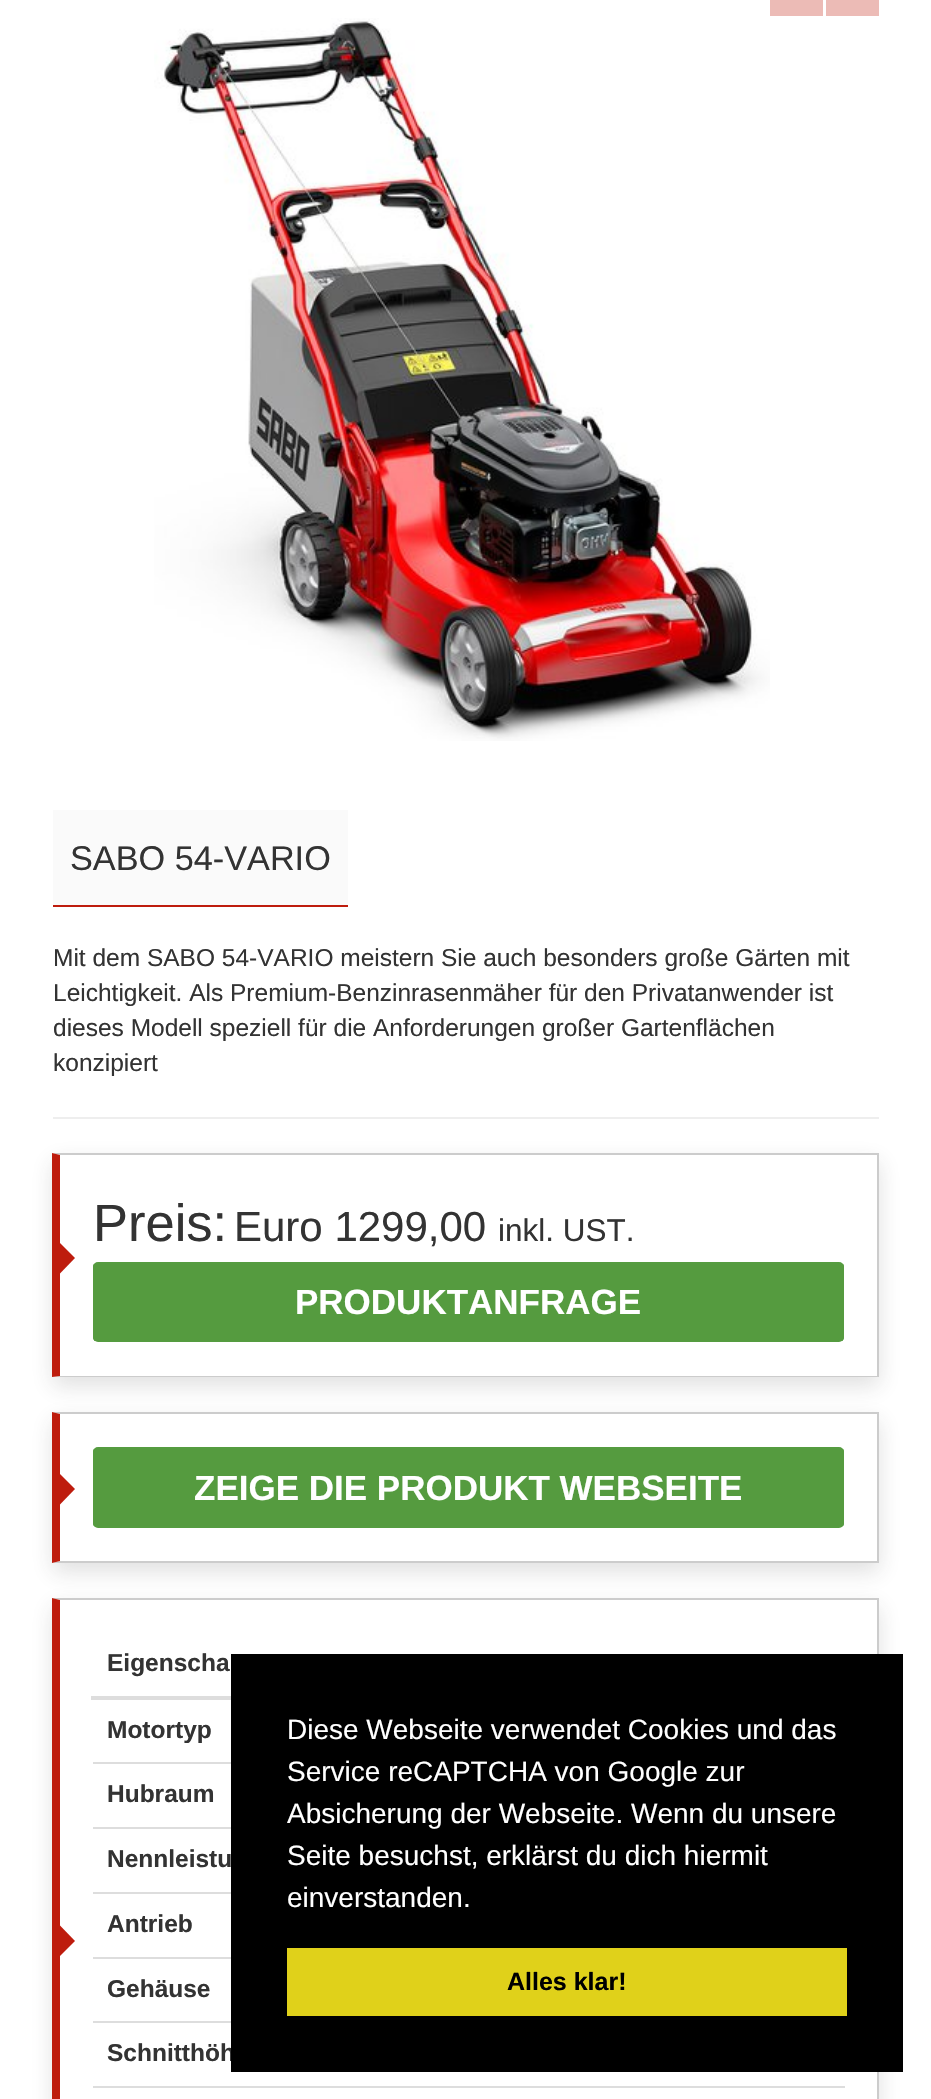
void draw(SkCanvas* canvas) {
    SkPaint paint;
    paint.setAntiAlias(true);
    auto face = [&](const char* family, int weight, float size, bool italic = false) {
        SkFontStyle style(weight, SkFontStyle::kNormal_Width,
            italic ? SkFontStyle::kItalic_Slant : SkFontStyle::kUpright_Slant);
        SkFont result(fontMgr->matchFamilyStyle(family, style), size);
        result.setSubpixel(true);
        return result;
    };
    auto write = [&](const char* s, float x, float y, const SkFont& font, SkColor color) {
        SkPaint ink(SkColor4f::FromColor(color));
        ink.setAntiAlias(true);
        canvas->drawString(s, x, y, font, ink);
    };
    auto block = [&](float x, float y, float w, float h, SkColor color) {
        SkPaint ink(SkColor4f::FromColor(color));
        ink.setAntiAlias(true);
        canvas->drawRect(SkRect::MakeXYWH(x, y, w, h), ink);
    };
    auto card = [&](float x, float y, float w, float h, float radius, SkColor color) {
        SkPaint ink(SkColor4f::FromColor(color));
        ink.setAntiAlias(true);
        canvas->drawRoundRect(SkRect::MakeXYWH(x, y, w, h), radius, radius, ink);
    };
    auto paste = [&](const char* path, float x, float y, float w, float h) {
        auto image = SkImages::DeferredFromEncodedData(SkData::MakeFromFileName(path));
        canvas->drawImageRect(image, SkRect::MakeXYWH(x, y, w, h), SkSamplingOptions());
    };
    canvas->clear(SK_ColorWHITE);
    block(770, 0, 53, 16, SkColorSetRGB(236, 187, 182));
    block(826, 0, 53, 16, SkColorSetRGB(236, 187, 182));
    paste("pic1.png", 154, 18, 616, 723);
    block(53, 810, 295, 95, SkColorSetRGB(250, 250, 250));
    block(53, 905, 295, 2, SkColorSetRGB(190, 28, 13));
    auto kFont1 = face("Liberation Sans", 400, 34.25f);
    write("SABO 54-VARIO", 70, 870, kFont1, SkColorSetRGB(51, 51, 51));
    auto kFont2 = face("Liberation Sans", 400, 24.5f);
    write("Mit dem SABO 54-VARIO meistern Sie auch besonders große Gärten mit", 53, 966, kFont2, SkColorSetRGB(51, 51, 51));
    write("Leichtigkeit. Als Premium-Benzinrasenmäher für den Privatanwender ist", 53, 1001, kFont2, SkColorSetRGB(51, 51, 51));
    write("dieses Modell speziell für die Anforderungen großer Gartenflächen", 53, 1036, kFont2, SkColorSetRGB(51, 51, 51));
    write("konzipiert", 53, 1071, kFont2, SkColorSetRGB(51, 51, 51));
    block(53, 1117, 826, 2, SkColorSetRGB(238, 238, 238));
    canvas->save();
    canvas->clipPath(SkPathBuilder(SkPathFillType::kEvenOdd).moveTo(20, 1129).lineTo(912, 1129).lineTo(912, 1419).lineTo(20, 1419).close().moveTo(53, 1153).lineTo(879, 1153).lineTo(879, 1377).lineTo(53, 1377).close().detach(), true);
    paint.setColor(SkColorSetARGB(38, 50, 50, 50));
    paint.setMaskFilter(SkMaskFilter::MakeBlur(kNormal_SkBlurStyle, 10.5f));
    canvas->drawRect(SkRect::MakeXYWH(53, 1162, 826, 224), paint);
    paint.setMaskFilter(nullptr);
    canvas->restore();
    paint.setColor(SkColorSetRGB(204, 204, 204));
    canvas->drawPath(SkPathBuilder().moveTo(52, 1153).lineTo(878, 1153).lineTo(877, 1155).lineTo(60, 1155).close().detach(), paint);
    block(877, 1153, 2, 224, SkColorSetRGB(204, 204, 204));
    canvas->drawPath(SkPathBuilder().moveTo(878, 1377).lineTo(52, 1377).lineTo(60, 1376).lineTo(877, 1376).close().detach(), paint);
    paint.setColor(SkColorSetRGB(190, 28, 13));
    canvas->drawPath(SkPathBuilder().moveTo(52, 1377).lineTo(52, 1153).lineTo(60, 1155).lineTo(60, 1376).close().detach(), paint);
    auto kFont3 = face("Liberation Sans", 400, 52.5f);
    write("Preis:", 93, 1241, kFont3, SkColorSetRGB(51, 51, 51));
    auto kFont4 = face("Liberation Sans", 400, 42);
    write("Euro 1299,00", 234, 1241, kFont4, SkColorSetRGB(51, 51, 51));
    auto kFont5 = face("Liberation Sans", 400, 31.5f);
    write("inkl. UST.", 498, 1241, kFont5, SkColorSetRGB(51, 51, 51));
    canvas->drawPath(SkPathBuilder().moveTo(59.5f, 1274).lineTo(59.5f, 1242.5f).lineTo(75, 1258).close().detach(), paint);
    card(93, 1262, 751, 80, 5, SkColorSetRGB(85, 156, 64));
    canvas->save();
    canvas->clipPath(SkPathBuilder().moveTo(98, 1262).lineTo(839, 1262).cubicTo(842, 1262, 844, 1264, 844, 1267).lineTo(844, 1337).cubicTo(844, 1340, 842, 1342, 839, 1342).lineTo(98, 1342).cubicTo(95, 1342, 93, 1340, 93, 1337).lineTo(93, 1267).cubicTo(93, 1264, 95, 1262, 98, 1262).close().detach(), true);
    block(93, 1264, 751, 77, SkColorSetRGB(85, 155, 63));
    canvas->restore();
    auto kFont6 = face("Liberation Sans", 700, 35);
    write("PRODUKTANFRAGE", 295, 1314, kFont6, SK_ColorWHITE);
    canvas->save();
    canvas->clipPath(SkPathBuilder(SkPathFillType::kEvenOdd).moveTo(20, 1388).lineTo(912, 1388).lineTo(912, 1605).lineTo(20, 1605).close().moveTo(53, 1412).lineTo(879, 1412).lineTo(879, 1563).lineTo(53, 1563).close().detach(), true);
    paint.setColor(SkColorSetARGB(38, 50, 50, 50));
    paint.setMaskFilter(SkMaskFilter::MakeBlur(kNormal_SkBlurStyle, 10.5f));
    canvas->drawRect(SkRect::MakeXYWH(53, 1421, 826, 151), paint);
    paint.setMaskFilter(nullptr);
    canvas->restore();
    paint.setColor(SkColorSetRGB(204, 204, 204));
    canvas->drawPath(SkPathBuilder().moveTo(52, 1412).lineTo(878, 1412).lineTo(877, 1414).lineTo(60, 1414).close().detach(), paint);
    block(877, 1412, 2, 151, SkColorSetRGB(204, 204, 204));
    canvas->drawPath(SkPathBuilder().moveTo(878, 1563).lineTo(52, 1563).lineTo(60, 1561).lineTo(877, 1561).close().detach(), paint);
    paint.setColor(SkColorSetRGB(190, 28, 13));
    canvas->drawPath(SkPathBuilder().moveTo(52, 1563).lineTo(52, 1412).lineTo(60, 1414).lineTo(60, 1561).close().detach(), paint);
    canvas->drawPath(SkPathBuilder().moveTo(59.5f, 1505).lineTo(59.5f, 1473.5f).lineTo(75, 1489).close().detach(), paint);
    card(93, 1447, 751, 81, 5, SkColorSetRGB(85, 156, 64));
    canvas->save();
    canvas->clipPath(SkPathBuilder().moveTo(98, 1447).lineTo(839, 1447).cubicTo(842, 1447, 844, 1449, 844, 1452).lineTo(844, 1523).cubicTo(844, 1526, 842, 1528, 839, 1528).lineTo(98, 1528).cubicTo(95, 1528, 93, 1526, 93, 1523).lineTo(93, 1452).cubicTo(93, 1449, 95, 1447, 98, 1447).close().detach(), true);
    block(93, 1449, 751, 77, SkColorSetRGB(85, 155, 63));
    canvas->restore();
    write("ZEIGE DIE PRODUKT WEBSEITE", 194, 1500, kFont6, SK_ColorWHITE);
    canvas->save();
    canvas->clipPath(SkPathBuilder(SkPathFillType::kEvenOdd).moveTo(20, 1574).lineTo(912, 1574).lineTo(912, 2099).lineTo(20, 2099).close().moveTo(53, 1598).lineTo(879, 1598).lineTo(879, 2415).lineTo(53, 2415).close().detach(), true);
    paint.setColor(SkColorSetARGB(38, 50, 50, 50));
    paint.setMaskFilter(SkMaskFilter::MakeBlur(kNormal_SkBlurStyle, 10.5f));
    canvas->drawRect(SkRect::MakeXYWH(53, 1607, 826, 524), paint);
    paint.setMaskFilter(nullptr);
    canvas->restore();
    paint.setColor(SkColorSetRGB(204, 204, 204));
    canvas->drawPath(SkPathBuilder().moveTo(52, 1598).lineTo(878, 1598).lineTo(877, 1600).lineTo(60, 1600).close().detach(), paint);
    block(877, 1598, 2, 501, SkColorSetRGB(204, 204, 204));
    paint.setColor(SkColorSetRGB(190, 28, 13));
    canvas->drawPath(SkPathBuilder().moveTo(52, 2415).lineTo(52, 1598).lineTo(60, 1600).lineTo(60, 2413).close().detach(), paint);
    canvas->drawPath(SkPathBuilder().moveTo(59.5f, 1956.5f).lineTo(59.5f, 1925).lineTo(75, 1941).close().detach(), paint);
    block(91, 1696, 140, 4, SkColorSetRGB(221, 221, 221));
    auto kFont7 = face("Liberation Sans", 700, 24.5f);
    write("Eigenscha", 107, 1671, kFont7, SkColorSetRGB(51, 51, 51));
    write("Motortyp", 107, 1738, kFont7, SkColorSetRGB(51, 51, 51));
    block(93, 1762, 138, 2, SkColorSetRGB(221, 221, 221));
    write("Hubraum", 107, 1802, kFont7, SkColorSetRGB(51, 51, 51));
    block(93, 1827, 138, 2, SkColorSetRGB(221, 221, 221));
    write("Nennleistu", 107, 1867, kFont7, SkColorSetRGB(51, 51, 51));
    block(93, 1892, 138, 2, SkColorSetRGB(221, 221, 221));
    write("Antrieb", 107, 1932, kFont7, SkColorSetRGB(51, 51, 51));
    block(93, 1957, 138, 2, SkColorSetRGB(221, 221, 221));
    write("Gehäuse", 107, 1997, kFont7, SkColorSetRGB(51, 51, 51));
    block(93, 2021, 138, 2, SkColorSetRGB(221, 221, 221));
    write("Schnitthöh", 107, 2061, kFont7, SkColorSetRGB(51, 51, 51));
    block(93, 2086, 752, 2, SkColorSetRGB(221, 221, 221));
    block(231, 1654, 672, 418, SK_ColorBLACK);
    auto kFont8 = face("Liberation Sans", 400, 28);
    write("Diese Webseite verwendet Cookies und das", 287, 1739, kFont8, SK_ColorWHITE);
    write("Service reCAPTCHA von Google zur", 287, 1781, kFont8, SK_ColorWHITE);
    write("Absicherung der Webseite. Wenn du unsere", 287, 1823, kFont8, SK_ColorWHITE);
    write("Seite besuchst, erklärst du dich hiermit", 287, 1865, kFont8, SK_ColorWHITE);
    write("einverstanden.", 287, 1907, kFont8, SK_ColorWHITE);
    block(287, 1948, 560, 68, SkColorSetRGB(224, 209, 26));
    auto kFont9 = face("Liberation Sans", 700, 25);
    write("Alles klar!", 507, 1990, kFont9, SK_ColorBLACK);
}
